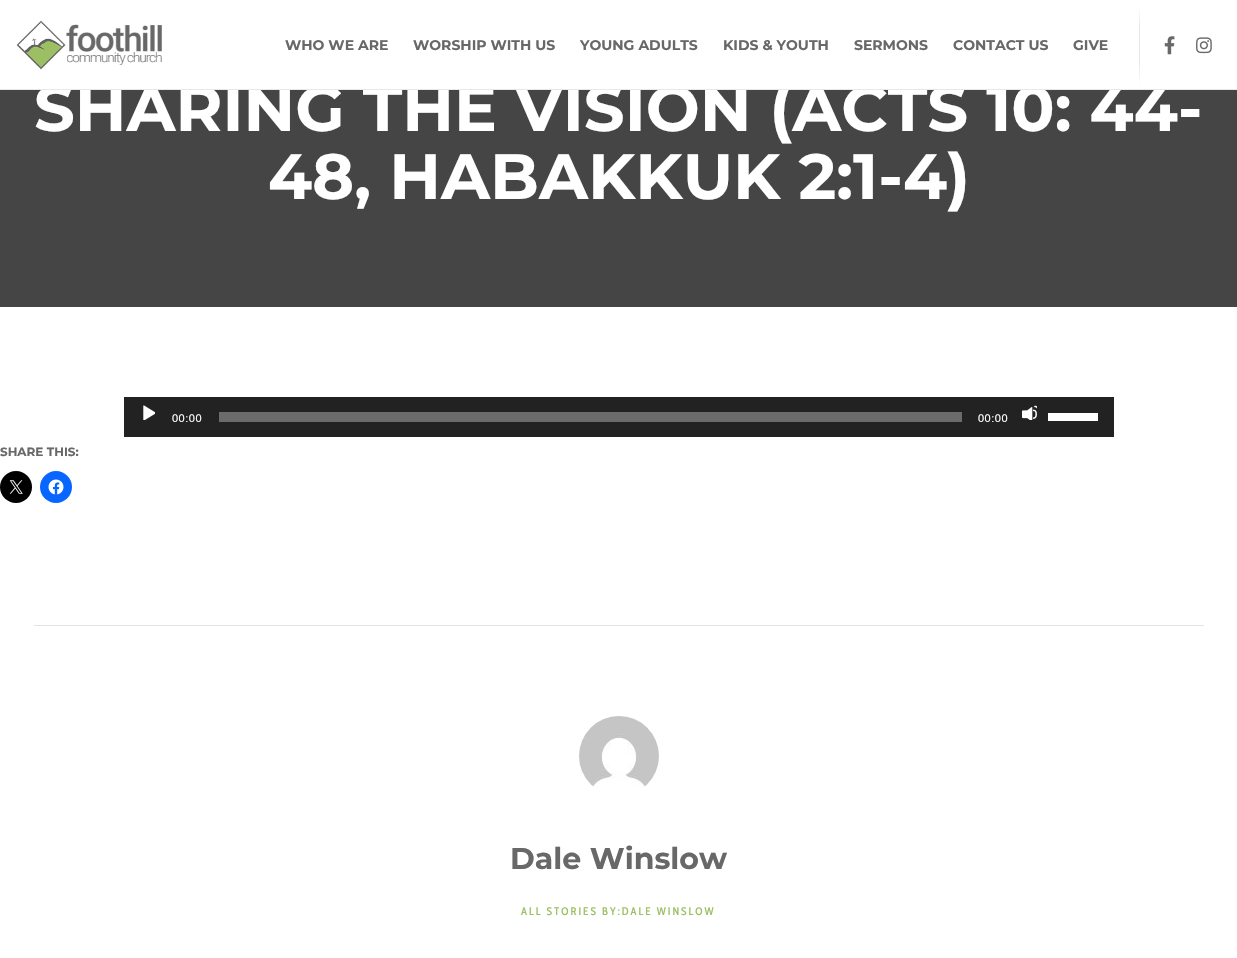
void draw(SkCanvas* canvas) {
    SkPaint paint;
    paint.setAntiAlias(true);
    auto face = [&](const char* family, int weight, float size, bool italic = false) {
        SkFontStyle style(weight, SkFontStyle::kNormal_Width,
            italic ? SkFontStyle::kItalic_Slant : SkFontStyle::kUpright_Slant);
        SkFont result(fontMgr->matchFamilyStyle(family, style), size);
        result.setSubpixel(true);
        return result;
    };
    auto write = [&](const char* s, float x, float y, const SkFont& font, SkColor color) {
        SkPaint ink(SkColor4f::FromColor(color));
        ink.setAntiAlias(true);
        canvas->drawString(s, x, y, font, ink);
    };
    auto writeSpaced = [&](const char* s, float x, float y, const SkFont& font, const SkPaint& ink, float letter, float word) {
        std::vector<SkGlyphID> glyphs(font.countText(s, strlen(s), SkTextEncoding::kUTF8));
        std::vector<float> xs(glyphs.size());
        font.textToGlyphs(s, strlen(s), SkTextEncoding::kUTF8, glyphs);
        font.getXPos(glyphs, xs, x);
        float extra = 0;
        for (size_t i = 0; i < glyphs.size(); i++) {
            xs[i] += extra;
            extra += letter + word * (glyphs[i] == font.unicharToGlyph(' '));
        }
        canvas->drawTextBlob(SkTextBlob::MakeFromPosHGlyphs(glyphs, xs, y, font), 0, 0, ink);
    };
    auto block = [&](float x, float y, float w, float h, SkColor color) {
        SkPaint ink(SkColor4f::FromColor(color));
        ink.setAntiAlias(true);
        canvas->drawRect(SkRect::MakeXYWH(x, y, w, h), ink);
    };
    auto paste = [&](const char* path, float x, float y, float w, float h) {
        auto image = SkImages::DeferredFromEncodedData(SkData::MakeFromFileName(path));
        canvas->drawImageRect(image, SkRect::MakeXYWH(x, y, w, h), SkSamplingOptions());
    };
    canvas->clear(SkColorSetRGB(69, 69, 69));
    block(0, 0, 1237, 89, SK_ColorWHITE);
    auto kFont1 = face("Montserrat", 100, 64);
    write("SHARING THE VISION (ACTS 10: 44-", 34, 131, kFont1, SK_ColorWHITE);
    block(0, 89, 1237, 1, SkColorSetRGB(232, 232, 232));
    paste("pic1.png", 16, 20, 146, 50);
    auto kFont2 = face("Montserrat", 100, 14);
    write("WHO WE ARE", 285, 50, kFont2, SkColorSetRGB(104, 104, 104));
    write("WORSHIP WITH US", 413, 50, kFont2, SkColorSetRGB(104, 104, 104));
    write("YOUNG ADULTS", 580, 50, kFont2, SkColorSetRGB(104, 104, 104));
    write("KIDS & YOUTH", 723, 50, kFont2, SkColorSetRGB(104, 104, 104));
    write("SERMONS", 854, 50, kFont2, SkColorSetRGB(104, 104, 104));
    write("CONTACT US", 953, 50, kFont2, SkColorSetRGB(104, 104, 104));
    write("GIVE", 1073, 50, kFont2, SkColorSetRGB(104, 104, 104));
    {
        const SkColor colors[] = {SkColorSetARGB(0, 178, 178, 178), SkColorSetARGB(77, 178, 178, 178), SkColorSetARGB(77, 178, 178, 178), SkColorSetARGB(0, 178, 178, 178)};
        const float stops[] = {0.05f, 0.3f, 0.7f, 0.95f};
        const SkPoint ends[] = {{1140, 0}, {1140, 90}};
        paint.setShader(SkGradientShader::MakeLinear(ends, colors, stops, 4, SkTileMode::kClamp));
        paint.setAlpha(255);
    }
    canvas->drawRect(SkRect::MakeXYWH(1139, 0, 1, 90), paint);
    paste("pic2.png", 1164, 36, 11, 19);
    paste("pic3.png", 1196, 37, 16, 17);
    write("48, HABAKKUK 2:1-4)", 268, 199, kFont1, SK_ColorWHITE);
    block(0, 307, 1237, 651, SK_ColorWHITE);
    block(124, 397, 990, 40, SkColorSetRGB(34, 34, 34));
    paste("pic4.png", 143, 405, 12, 15);
    auto kFont3 = face("Liberation Sans", 400, 11);
    paint.setShader(nullptr);
    paint.setColor(SK_ColorWHITE);
    writeSpaced("00:00", 172, 422, kFont3, paint, 0.5f, 0);
    block(219, 412, 743, 10, SkColorSetRGB(107, 107, 107));
    writeSpaced("00:00", 978, 422, kFont3, paint, 0.5f, 0);
    paste("pic5.png", 1022, 405, 15, 15);
    block(1048, 413, 50, 8, SK_ColorWHITE);
    auto kFont4 = face("Montserrat", 100, 12);
    write("SHARE THIS:", 0, 456, kFont4, SkColorSetRGB(104, 104, 104));
    paint.setColor(SK_ColorBLACK);
    canvas->drawCircle(16, 487, 16, paint);
    paste("pic6.png", 9, 480, 14, 14);
    paint.setColor(SkColorSetRGB(8, 102, 255));
    canvas->drawCircle(56, 487, 16, paint);
    paste("pic7.png", 48, 479, 16, 16);
    block(34, 625, 1170, 1, SkColorSetRGB(228, 228, 228));
    paste("pic8.png", 579, 716, 80, 71);
    auto kFont5 = face("Montserrat", 100, 30);
    write("Dale Winslow", 510, 869, kFont5, SkColorSetRGB(104, 104, 104));
    auto kFont6 = face("Cabin Condensed", 500, 11);
    paint.setColor(SkColorSetRGB(156, 191, 99));
    writeSpaced("ALL STORIES BY:DALE WINSLOW", 521, 915, kFont6, paint, 2, 0);
}
